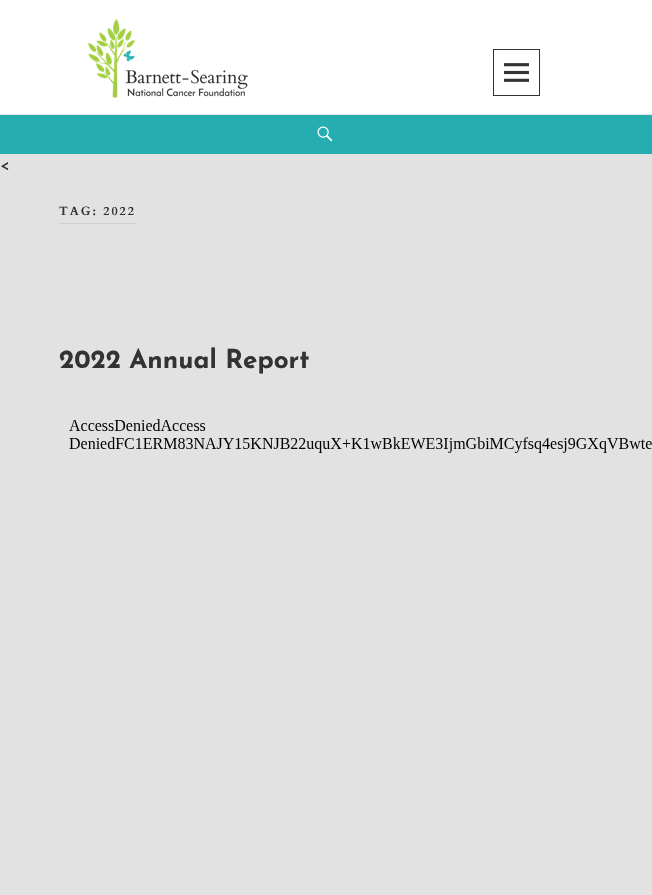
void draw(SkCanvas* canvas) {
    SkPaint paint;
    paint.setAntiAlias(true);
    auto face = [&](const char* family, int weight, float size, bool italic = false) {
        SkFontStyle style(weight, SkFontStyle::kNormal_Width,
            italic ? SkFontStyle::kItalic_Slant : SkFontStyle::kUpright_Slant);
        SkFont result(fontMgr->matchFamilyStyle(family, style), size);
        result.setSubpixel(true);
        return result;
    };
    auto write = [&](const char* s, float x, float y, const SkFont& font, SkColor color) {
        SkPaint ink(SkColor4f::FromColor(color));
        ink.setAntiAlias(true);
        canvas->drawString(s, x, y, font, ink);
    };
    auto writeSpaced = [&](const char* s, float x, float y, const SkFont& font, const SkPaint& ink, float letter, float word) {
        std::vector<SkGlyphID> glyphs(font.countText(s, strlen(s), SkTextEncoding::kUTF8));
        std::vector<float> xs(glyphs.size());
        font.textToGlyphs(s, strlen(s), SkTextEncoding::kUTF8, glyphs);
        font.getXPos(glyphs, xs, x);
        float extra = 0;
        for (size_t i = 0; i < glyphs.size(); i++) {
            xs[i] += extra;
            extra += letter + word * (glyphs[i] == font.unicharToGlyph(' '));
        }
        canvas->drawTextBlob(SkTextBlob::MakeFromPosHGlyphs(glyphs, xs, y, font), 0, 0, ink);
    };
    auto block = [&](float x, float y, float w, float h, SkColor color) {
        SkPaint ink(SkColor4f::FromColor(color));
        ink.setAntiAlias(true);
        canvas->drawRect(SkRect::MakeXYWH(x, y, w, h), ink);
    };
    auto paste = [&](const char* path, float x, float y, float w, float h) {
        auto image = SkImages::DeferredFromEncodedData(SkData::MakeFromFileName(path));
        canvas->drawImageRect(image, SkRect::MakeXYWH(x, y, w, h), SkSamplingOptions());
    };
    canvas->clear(SkColorSetRGB(226, 226, 226));
    block(0, 0, 652, 114, SK_ColorWHITE);
    paste("pic1.png", 88, 19, 160, 79);
    paint.setStyle(SkPaint::kStroke_Style);
    paint.setStrokeWidth(1);
    paint.setColor(SkColorSetRGB(51, 51, 51));
    canvas->drawRect(SkRect::MakeXYWH(493.5f, 49.5f, 46, 46), paint);
    paste("pic2.png", 504, 63, 25, 19);
    block(0, 115, 652, 39, SkColorSetRGB(37, 173, 175));
    paste("pic3.png", 317, 126, 16, 16);
    auto kFont1 = face("Josefin Sans", 400, 16);
    write("<", 0, 170, kFont1, SkColorSetRGB(51, 51, 51));
    block(59, 223, 77, 1, SkColorSetRGB(205, 205, 205));
    auto kFont2 = face("Cardo", 700, 12);
    paint.setStyle(SkPaint::kFill_Style);
    writeSpaced("TAG: 2022", 59, 215, kFont2, paint, 2, 0);
    auto kFont3 = face("Josefin Sans", 700, 26);
    write("2022 Annual Report", 59, 368, kFont3, SkColorSetRGB(51, 51, 51));
    paste("pic4.png", 69, 419, 583, 34);
}
